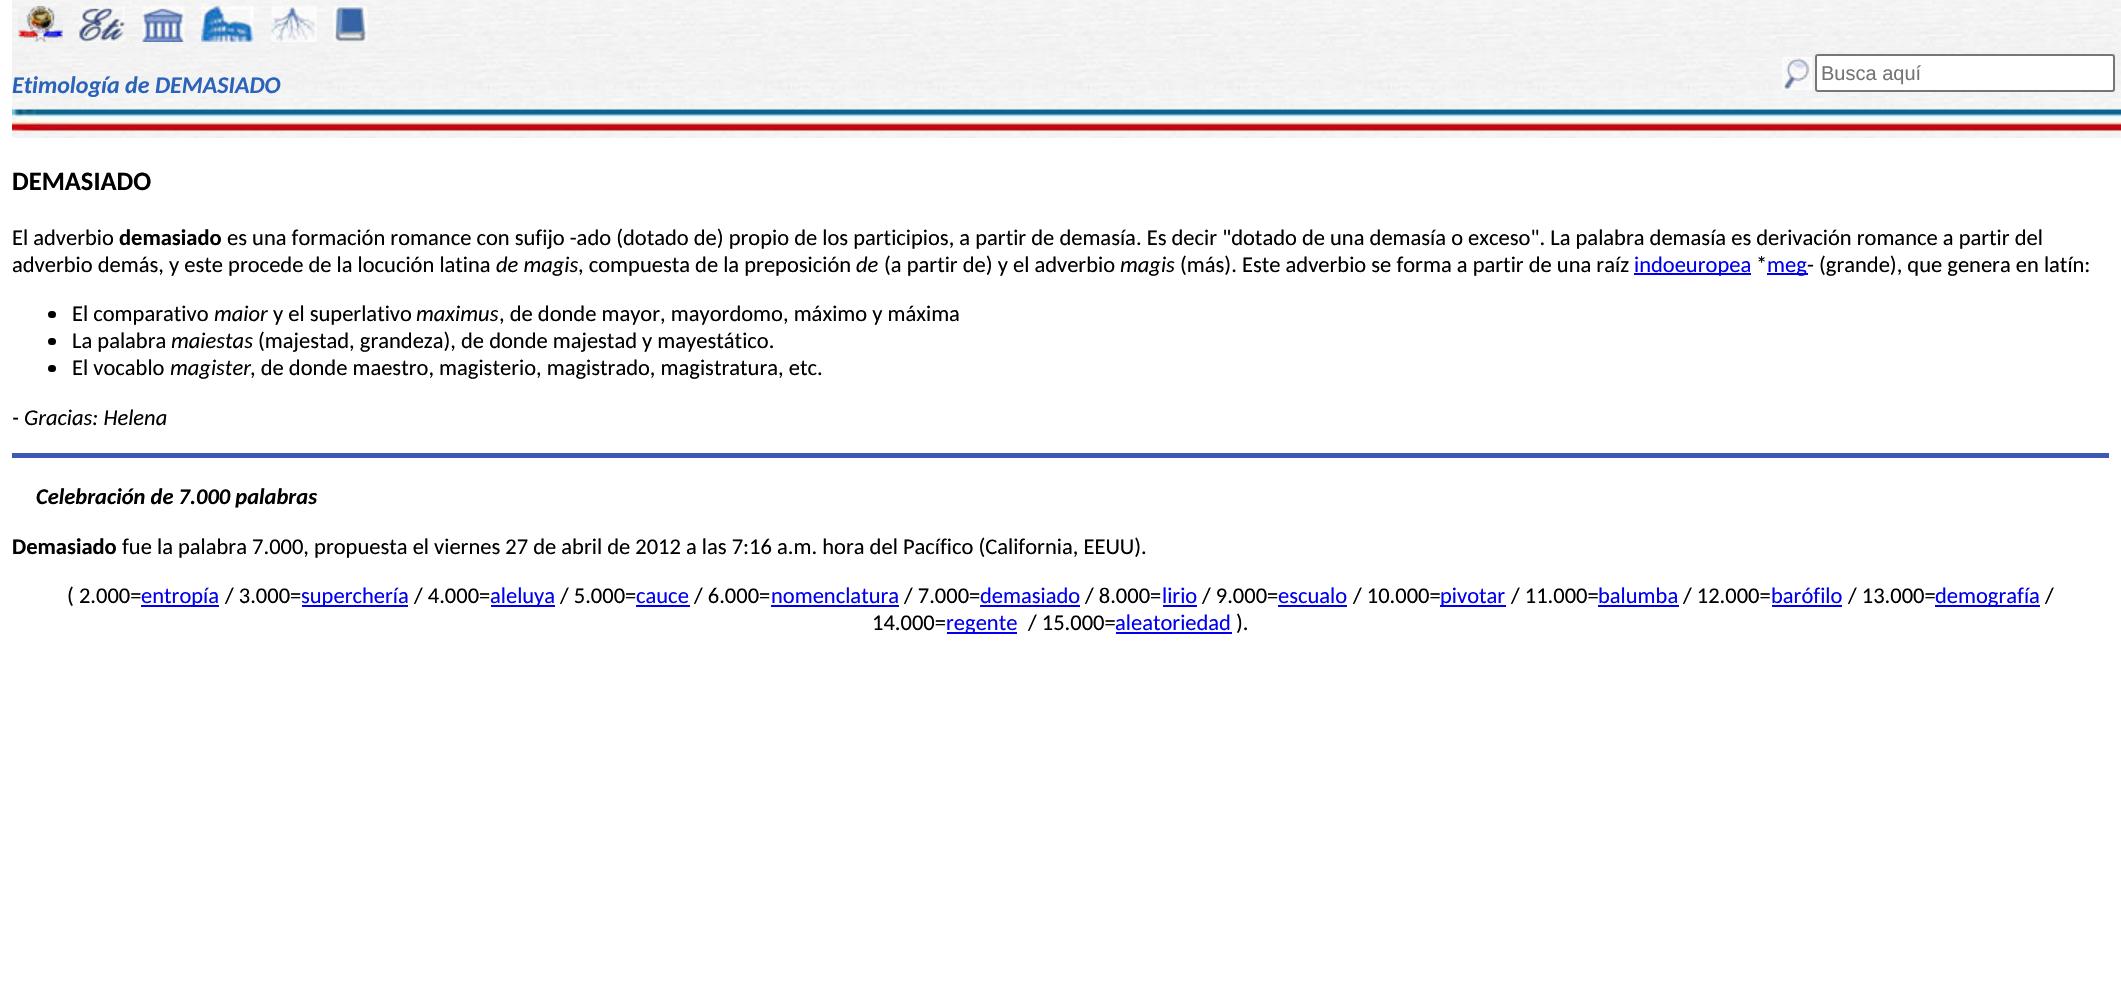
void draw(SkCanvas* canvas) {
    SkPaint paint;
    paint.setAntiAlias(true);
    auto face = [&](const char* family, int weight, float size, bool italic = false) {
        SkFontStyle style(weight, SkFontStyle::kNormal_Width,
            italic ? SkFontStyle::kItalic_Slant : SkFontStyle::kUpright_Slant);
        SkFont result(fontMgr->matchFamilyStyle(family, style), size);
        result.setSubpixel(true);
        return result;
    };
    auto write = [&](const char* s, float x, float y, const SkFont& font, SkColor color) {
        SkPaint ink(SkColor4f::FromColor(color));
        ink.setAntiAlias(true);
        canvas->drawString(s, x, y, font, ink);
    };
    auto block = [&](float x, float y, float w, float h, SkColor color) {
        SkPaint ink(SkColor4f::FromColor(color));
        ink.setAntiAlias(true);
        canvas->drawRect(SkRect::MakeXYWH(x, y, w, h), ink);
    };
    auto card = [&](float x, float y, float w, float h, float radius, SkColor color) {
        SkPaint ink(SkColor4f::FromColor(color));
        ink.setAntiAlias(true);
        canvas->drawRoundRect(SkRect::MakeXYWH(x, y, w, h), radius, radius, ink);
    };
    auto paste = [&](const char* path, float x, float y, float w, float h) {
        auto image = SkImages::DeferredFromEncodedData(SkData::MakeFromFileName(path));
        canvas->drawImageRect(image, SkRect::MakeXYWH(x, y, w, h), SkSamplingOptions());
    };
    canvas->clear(SK_ColorWHITE);
    paste("pic1.png", 12, 0, 2109, 138);
    auto kFont1 = face("Carlito", 700, 24, true);
    write("Etimología de DEMASIADO", 12, 93, kFont1, SkColorSetRGB(42, 99, 184));
    paste("pic2.png", 18, 6, 45, 36);
    paste("pic3.png", 79, 6, 46, 36);
    paste("pic4.png", 142, 6, 43, 36);
    paste("pic5.png", 201, 6, 53, 36);
    paste("pic6.png", 271, 6, 46, 36);
    paste("pic7.png", 333, 6, 35, 36);
    paste("pic8.png", 1782, 57, 30, 33);
    paint.setColor(SK_ColorWHITE);
    canvas->drawRoundRect(SkRect::MakeXYWH(1816, 55, 298, 36), 2, 2, paint);
    paint.setStyle(SkPaint::kStroke_Style);
    paint.setStrokeWidth(2);
    paint.setColor(SkColorSetRGB(118, 118, 118));
    canvas->drawRoundRect(SkRect::MakeXYWH(1816, 55, 298, 36), 2, 2, paint);
    auto kFont2 = face("Liberation Sans", 400, 20);
    write("Busca aquí", 1821, 80, kFont2, SkColorSetRGB(117, 117, 117));
    paste("pic9.png", 12, 109, 2109, 22);
    auto kFont3 = face("Carlito", 700, 26.5f);
    write("DEMASIADO", 12, 190, kFont3, SK_ColorBLACK);
    auto kFont4 = face("Carlito", 400, 22.5f);
    write("El adverbio", 12, 245, kFont4, SK_ColorBLACK);
    auto kFont5 = face("Carlito", 700, 22.5f);
    write("demasiado", 119, 245, kFont5, SK_ColorBLACK);
    write("es una formación romance con sufijo -ado (dotado de) propio de los participios, a partir de demasía. Es decir \"dotado de una demasía o exceso\". La palabra demasía es derivación romance a partir del", 227, 245, kFont4, SK_ColorBLACK);
    write("adverbio demás, y este procede de la locución latina", 12, 272, kFont4, SK_ColorBLACK);
    auto kFont6 = face("Carlito", 400, 22.5f, true);
    write("de magis", 496, 272, kFont6, SK_ColorBLACK);
    write(", compuesta de la preposición", 578, 272, kFont4, SK_ColorBLACK);
    write("de", 856, 272, kFont6, SK_ColorBLACK);
    write("(a partir de) y el adverbio", 884, 272, kFont4, SK_ColorBLACK);
    write("magis", 1120, 272, kFont6, SK_ColorBLACK);
    write("(más). Este adverbio se forma a partir de una raíz", 1180, 272, kFont4, SK_ColorBLACK);
    block(1634, 273, 117, 2, SkColorSetRGB(0, 0, 238));
    write("indoeuropea", 1634, 272, kFont4, SkColorSetRGB(0, 0, 238));
    write("*", 1756, 272, kFont4, SK_ColorBLACK);
    block(1767, 273, 41, 2, SkColorSetRGB(0, 0, 238));
    write("- (grande), que genera en latín:", 1807, 272, kFont4, SK_ColorBLACK);
    write("meg", 1767, 272, kFont4, SkColorSetRGB(0, 0, 238));
    card(48, 311, 8, 7, 3.5f, SK_ColorBLACK);
    write("El comparativo", 72, 321, kFont4, SK_ColorBLACK);
    write("maior", 214, 321, kFont6, SK_ColorBLACK);
    write("y el superlativo", 273, 321, kFont4, SK_ColorBLACK);
    write("maximus", 416, 321, kFont6, SK_ColorBLACK);
    write(", de donde mayor, mayordomo, máximo y máxima", 499, 321, kFont4, SK_ColorBLACK);
    card(48, 338, 8, 7, 3.5f, SK_ColorBLACK);
    write("La palabra", 72, 348, kFont4, SK_ColorBLACK);
    write("maiestas", 171, 348, kFont6, SK_ColorBLACK);
    write("(majestad, grandeza), de donde majestad y mayestático.", 258, 348, kFont4, SK_ColorBLACK);
    card(48, 365, 8, 7, 3.5f, SK_ColorBLACK);
    write("El vocablo", 72, 375, kFont4, SK_ColorBLACK);
    write("magister", 170, 375, kFont6, SK_ColorBLACK);
    write(", de donde maestro, magisterio, magistrado, magistratura, etc.", 250, 375, kFont4, SK_ColorBLACK);
    write("- Gracias: Helena", 12, 425, kFont6, SK_ColorBLACK);
    block(12, 453, 2097, 5, SkColorSetRGB(60, 90, 180));
    auto kFont7 = face("Carlito", 700, 22.5f, true);
    write("Celebración de 7.000 palabras", 36, 504, kFont7, SK_ColorBLACK);
    write("Demasiado", 12, 554, kFont5, SK_ColorBLACK);
    write("fue la palabra 7.000, propuesta el viernes 27 de abril de 2012 a las 7:16 a.m. hora del Pacífico (California, EEUU).", 122, 554, kFont4, SK_ColorBLACK);
    write("( 2.000=", 67, 603, kFont4, SK_ColorBLACK);
    block(141, 605, 78, 2, SkColorSetRGB(0, 0, 238));
    write("entropía", 141, 603, kFont4, SkColorSetRGB(0, 0, 238));
    write("/ 3.000=", 225, 603, kFont4, SK_ColorBLACK);
    block(302, 605, 106, 2, SkColorSetRGB(0, 0, 238));
    write("superchería", 301, 603, kFont4, SkColorSetRGB(0, 0, 238));
    write("/ 4.000=", 414, 603, kFont4, SK_ColorBLACK);
    block(491, 605, 64, 2, SkColorSetRGB(0, 0, 238));
    write("aleluya", 490, 603, kFont4, SkColorSetRGB(0, 0, 238));
    write("/ 5.000=", 560, 603, kFont4, SK_ColorBLACK);
    write("cauce", 636, 603, kFont4, SkColorSetRGB(0, 0, 238));
    block(636, 605, 54, 2, SkColorSetRGB(0, 0, 238));
    write("/ 6.000=", 694, 603, kFont4, SK_ColorBLACK);
    write("nomenclatura", 771, 603, kFont4, SkColorSetRGB(0, 0, 238));
    block(771, 605, 128, 2, SkColorSetRGB(0, 0, 238));
    write("/ 7.000=", 904, 603, kFont4, SK_ColorBLACK);
    write("demasiado", 980, 603, kFont4, SkColorSetRGB(0, 0, 238));
    block(980, 605, 100, 2, SkColorSetRGB(0, 0, 238));
    write("/ 8.000=", 1085, 603, kFont4, SK_ColorBLACK);
    write("lirio", 1162, 603, kFont4, SkColorSetRGB(0, 0, 238));
    block(1163, 605, 34, 2, SkColorSetRGB(0, 0, 238));
    write("/ 9.000=", 1202, 603, kFont4, SK_ColorBLACK);
    write("escualo", 1278, 603, kFont4, SkColorSetRGB(0, 0, 238));
    block(1278, 605, 69, 2, SkColorSetRGB(0, 0, 238));
    write("/ 10.000=", 1353, 603, kFont4, SK_ColorBLACK);
    block(1440, 605, 66, 2, SkColorSetRGB(0, 0, 238));
    write("pivotar", 1440, 603, kFont4, SkColorSetRGB(0, 0, 238));
    write("/ 11.000=", 1511, 603, kFont4, SK_ColorBLACK);
    write("balumba", 1598, 603, kFont4, SkColorSetRGB(0, 0, 238));
    block(1598, 605, 81, 2, SkColorSetRGB(0, 0, 238));
    write("/ 12.000=", 1683, 603, kFont4, SK_ColorBLACK);
    write("barófilo", 1771, 603, kFont4, SkColorSetRGB(0, 0, 238));
    block(1772, 605, 70, 2, SkColorSetRGB(0, 0, 238));
    write("/ 13.000=", 1848, 603, kFont4, SK_ColorBLACK);
    block(1935, 605, 105, 2, SkColorSetRGB(0, 0, 238));
    write("demografía", 1935, 603, kFont4, SkColorSetRGB(0, 0, 238));
    write("/", 2045, 603, kFont4, SK_ColorBLACK);
    write("14.000=", 872, 630, kFont4, SK_ColorBLACK);
    block(947, 632, 70, 2, SkColorSetRGB(0, 0, 238));
    write("regente", 946, 630, kFont4, SkColorSetRGB(0, 0, 238));
    write("/ 15.000=", 1028, 630, kFont4, SK_ColorBLACK);
    write("aleatoriedad", 1115, 630, kFont4, SkColorSetRGB(0, 0, 238));
    block(1116, 632, 116, 2, SkColorSetRGB(0, 0, 238));
    write(").", 1236, 630, kFont4, SK_ColorBLACK);
}
